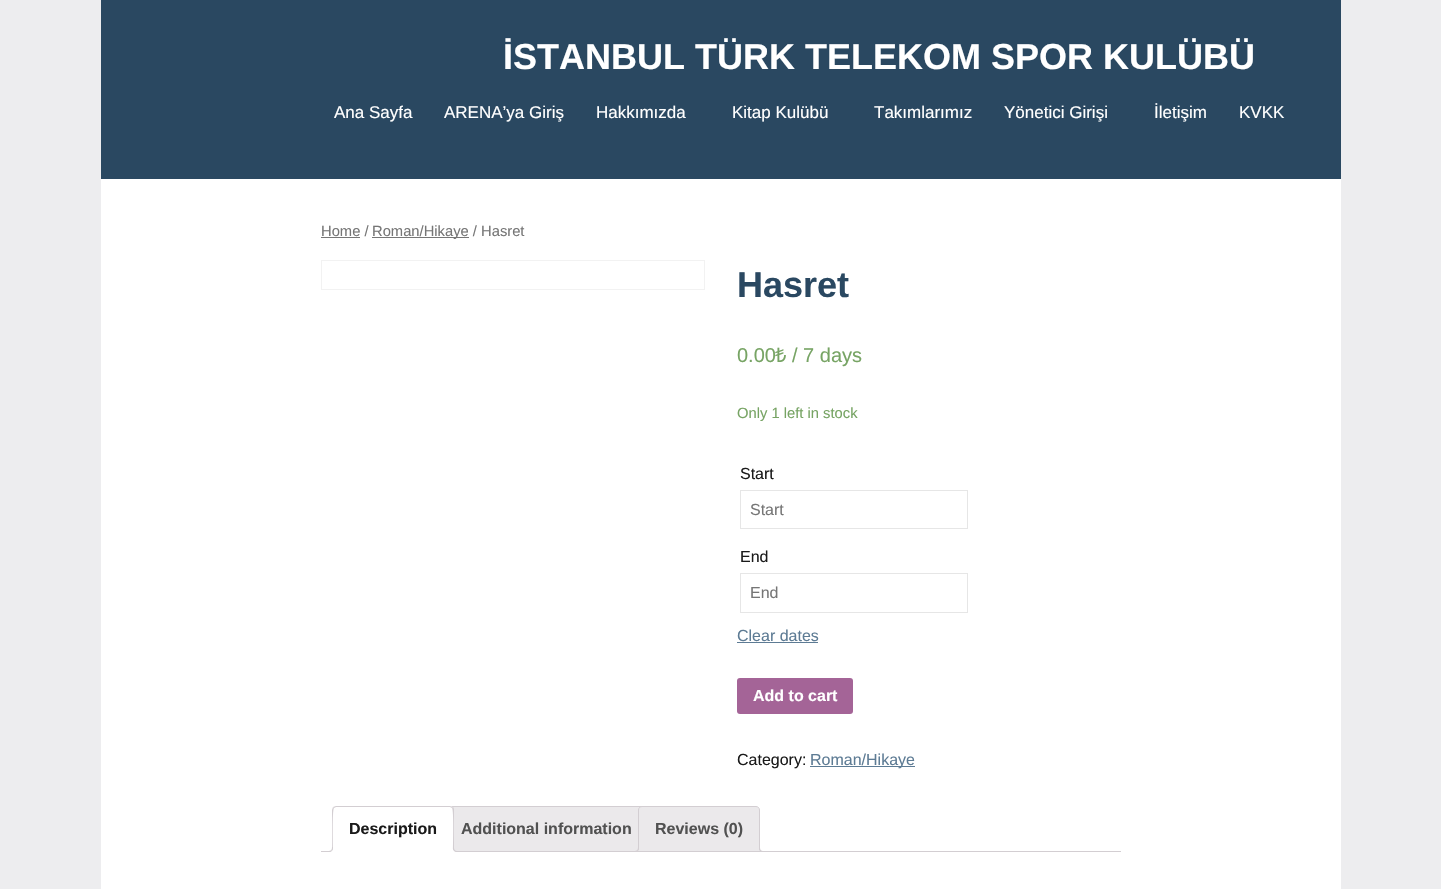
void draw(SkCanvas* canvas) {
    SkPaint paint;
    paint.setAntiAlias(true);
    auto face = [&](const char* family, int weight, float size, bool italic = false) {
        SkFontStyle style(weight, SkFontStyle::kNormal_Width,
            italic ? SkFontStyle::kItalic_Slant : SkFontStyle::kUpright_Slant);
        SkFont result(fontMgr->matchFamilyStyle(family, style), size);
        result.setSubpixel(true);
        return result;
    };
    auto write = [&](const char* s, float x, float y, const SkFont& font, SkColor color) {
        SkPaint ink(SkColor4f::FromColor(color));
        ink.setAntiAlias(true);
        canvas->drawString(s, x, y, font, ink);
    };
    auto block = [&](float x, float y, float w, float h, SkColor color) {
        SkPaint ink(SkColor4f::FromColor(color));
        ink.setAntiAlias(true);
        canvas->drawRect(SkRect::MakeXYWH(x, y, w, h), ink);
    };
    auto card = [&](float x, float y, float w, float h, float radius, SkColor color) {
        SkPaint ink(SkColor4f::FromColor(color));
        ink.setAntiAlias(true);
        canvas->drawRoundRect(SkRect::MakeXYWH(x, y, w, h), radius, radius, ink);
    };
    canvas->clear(SkColorSetRGB(237, 237, 239));
    block(101, 0, 1240, 179, SkColorSetRGB(42, 72, 97));
    auto kFont1 = face("Liberation Sans", 700, 36);
    write("İSTANBUL TÜRK TELEKOM SPOR KULÜBÜ", 503, 69, kFont1, SK_ColorWHITE);
    auto kFont2 = face("Liberation Sans", 400, 17);
    write("Ana Sayfa", 334, 118, kFont2, SK_ColorWHITE);
    write("ARENA’ya Giriş", 444, 118, kFont2, SK_ColorWHITE);
    write("Hakkımızda", 596, 118, kFont2, SK_ColorWHITE);
    write("Kitap Kulübü", 732, 118, kFont2, SK_ColorWHITE);
    write("Takımlarımız", 874, 118, kFont2, SK_ColorWHITE);
    write("Yönetici Girişi", 1004, 118, kFont2, SK_ColorWHITE);
    write("İletişim", 1154, 118, kFont2, SK_ColorWHITE);
    write("KVKK", 1239, 118, kFont2, SK_ColorWHITE);
    block(101, 179, 1240, 710, SK_ColorWHITE);
    auto kFont3 = face("Liberation Sans", 400, 14.75f);
    write("Home /", 321, 236, kFont3, SkColorSetRGB(118, 118, 118));
    block(321, 237, 39, 1, SkColorSetRGB(118, 118, 118));
    block(372, 237, 97, 1, SkColorSetRGB(118, 118, 118));
    write("Roman/Hikaye / Hasret", 372, 236, kFont3, SkColorSetRGB(118, 118, 118));
    paint.setStyle(SkPaint::kStroke_Style);
    paint.setStrokeWidth(1);
    paint.setColor(SkColorSetRGB(242, 242, 242));
    canvas->drawRect(SkRect::MakeXYWH(321.5f, 260.5f, 383, 29), paint);
    write("Hasret", 737, 297, kFont1, SkColorSetRGB(42, 72, 97));
    auto kFont4 = face("Liberation Sans", 400, 20);
    write("0.00", 737, 362, kFont4, SkColorSetRGB(119, 164, 100));
    auto kFont5 = face("Noto Sans", 400, 20);
    write("₺", 775, 362, kFont5, SkColorSetRGB(119, 164, 100));
    write("/ 7 days", 792, 362, kFont4, SkColorSetRGB(119, 164, 100));
    write("Only 1 left in stock", 737, 418, kFont3, SkColorSetRGB(119, 164, 100));
    auto kFont6 = face("Liberation Sans", 400, 16);
    write("Start", 740, 479, kFont6, SkColorSetRGB(26, 26, 26));
    paint.setColor(SkColorSetRGB(230, 230, 230));
    canvas->drawRect(SkRect::MakeXYWH(740.5f, 490.5f, 227, 38), paint);
    write("Start", 750, 515, kFont6, SkColorSetRGB(118, 118, 118));
    write("End", 740, 562, kFont6, SkColorSetRGB(26, 26, 26));
    canvas->drawRect(SkRect::MakeXYWH(740.5f, 573.5f, 227, 39), paint);
    write("End", 750, 598, kFont6, SkColorSetRGB(118, 118, 118));
    write("Clear dates", 737, 641, kFont6, SkColorSetRGB(93, 123, 148));
    block(737, 642, 81, 1, SkColorSetRGB(93, 123, 148));
    card(737, 678, 116, 36, 3, SkColorSetRGB(164, 100, 151));
    auto kFont7 = face("Liberation Sans", 700, 16);
    write("Add to cart", 753, 701, kFont7, SK_ColorWHITE);
    write("Category:", 737, 765, kFont6, SkColorSetRGB(26, 26, 26));
    block(810, 766, 105, 1, SkColorSetRGB(93, 123, 148));
    write("Roman/Hikaye", 810, 765, kFont6, SkColorSetRGB(93, 123, 148));
    block(452, 807, 188, 44, SkColorSetRGB(235, 233, 235));
    paint.setColor(SkColorSetRGB(211, 206, 210));
    canvas->drawRect(SkRect::MakeXYWH(444.5f, 806.5f, 203, 45), paint);
    paint.setStyle(SkPaint::kFill_Style);
    paint.setColor(SkColorSetRGB(235, 233, 235));
    canvas->drawPath(SkPathBuilder().moveTo(642, 806.5f).lineTo(756, 806.5f).cubicTo(758, 806.5f, 759.5f, 808, 759.5f, 810).lineTo(759.5f, 851.5f).lineTo(638.5f, 851.5f).lineTo(638.5f, 810).cubicTo(638.5f, 808, 640, 806.5f, 642, 806.5f).close().detach(), paint);
    paint.setStyle(SkPaint::kStroke_Style);
    paint.setColor(SkColorSetRGB(211, 206, 210));
    canvas->drawPath(SkPathBuilder().moveTo(642, 806.5f).lineTo(756, 806.5f).cubicTo(758, 806.5f, 759.5f, 808, 759.5f, 810).lineTo(759.5f, 851.5f).lineTo(638.5f, 851.5f).lineTo(638.5f, 810).cubicTo(638.5f, 808, 640, 806.5f, 642, 806.5f).close().detach(), paint);
    canvas->save();
    canvas->clipRect(SkRect::MakeXYWH(321, 806, 800, 46));
    paint.setStyle(SkPaint::kFill_Style);
    paint.setColor(SkColorSetRGB(235, 233, 235));
    canvas->drawPath(SkPathBuilder().moveTo(636, 852).lineTo(636, 854).cubicTo(639.5f, 854, 641, 852.5f, 641, 849).lineTo(639, 849).cubicTo(638.5f, 850.5f, 637.5f, 851.5f, 636, 852).close().detach(), paint);
    canvas->restore();
    paint.setColor(SkColorSetRGB(211, 206, 210));
    canvas->drawPath(SkPathBuilder(SkPathFillType::kEvenOdd).moveTo(634, 847).lineTo(639, 847).cubicTo(639, 850.5f, 637.5f, 852, 634, 852).close().moveTo(634, 847).lineTo(638, 847).cubicTo(638, 850, 637, 851, 634, 851).close().detach(), paint);
    canvas->save();
    canvas->clipRect(SkRect::MakeXYWH(321, 806, 800, 46));
    paint.setColor(SkColorSetRGB(235, 233, 235));
    canvas->drawPath(SkPathBuilder().moveTo(757, 849).cubicTo(757, 852.5f, 758.5f, 854, 762, 854).lineTo(762, 852).cubicTo(760.5f, 851.5f, 759.5f, 850.5f, 759, 849).close().detach(), paint);
    canvas->restore();
    paint.setColor(SkColorSetRGB(211, 206, 210));
    canvas->drawPath(SkPathBuilder(SkPathFillType::kEvenOdd).moveTo(759, 847).lineTo(764, 847).lineTo(764, 852).cubicTo(761.5f, 852, 759, 851, 759, 848).close().moveTo(760, 847).lineTo(764, 847).lineTo(764, 851).cubicTo(762, 851, 760, 850.5f, 760, 848).close().detach(), paint);
    block(321, 851, 800, 1, SkColorSetRGB(211, 206, 210));
    paint.setColor(SK_ColorWHITE);
    canvas->drawPath(SkPathBuilder().moveTo(336, 806).lineTo(450, 806).cubicTo(452, 806, 454, 808, 454, 810).lineTo(454, 852).lineTo(332, 852).lineTo(332, 810).cubicTo(332, 808, 334, 806, 336, 806).close().detach(), paint);
    paint.setColor(SkColorSetRGB(211, 206, 210));
    canvas->drawPath(SkPathBuilder().moveTo(336, 806).lineTo(333, 807).lineTo(334, 808).lineTo(336, 807).lineTo(450, 807).lineTo(452, 808).lineTo(453, 807).lineTo(450, 806).close().detach(), paint);
    canvas->drawPath(SkPathBuilder().moveTo(454, 852).lineTo(454, 810).cubicTo(454, 809, 454, 808, 453, 807).lineTo(452, 808).cubicTo(454, 810, 453, 846, 453, 851).close().detach(), paint);
    paint.setColor(SK_ColorWHITE);
    canvas->drawPath(SkPathBuilder().moveTo(454, 852).lineTo(453, 851).lineTo(333, 851).lineTo(332, 852).close().detach(), paint);
    paint.setColor(SkColorSetRGB(211, 206, 210));
    canvas->drawPath(SkPathBuilder().moveTo(332, 852).lineTo(333, 851).cubicTo(333, 846, 332, 810, 334, 808).lineTo(333, 807).lineTo(332, 810).close().detach(), paint);
    write("Description", 349, 834, kFont7, SkColorSetRGB(26, 26, 26));
    canvas->save();
    canvas->clipRect(SkRect::MakeXYWH(321, 806, 800, 46));
    paint.setColor(SK_ColorWHITE);
    canvas->drawPath(SkPathBuilder().moveTo(330, 852).lineTo(330, 854).cubicTo(333.5f, 854, 335, 852.5f, 335, 849).lineTo(333, 849).cubicTo(332.5f, 850.5f, 331.5f, 851.5f, 330, 852).close().detach(), paint);
    canvas->restore();
    paint.setColor(SkColorSetRGB(211, 206, 210));
    canvas->drawPath(SkPathBuilder(SkPathFillType::kEvenOdd).moveTo(328, 847).lineTo(333, 847).cubicTo(333, 850.5f, 331.5f, 852, 328, 852).close().moveTo(328, 847).lineTo(332, 847).cubicTo(332, 850, 331, 851, 328, 851).close().detach(), paint);
    canvas->save();
    canvas->clipRect(SkRect::MakeXYWH(321, 806, 800, 46));
    paint.setColor(SK_ColorWHITE);
    canvas->drawPath(SkPathBuilder().moveTo(451, 849).cubicTo(451, 852.5f, 452.5f, 854, 456, 854).lineTo(456, 852).cubicTo(454.5f, 851.5f, 453.5f, 850.5f, 453, 849).close().detach(), paint);
    canvas->restore();
    paint.setColor(SkColorSetRGB(211, 206, 210));
    canvas->drawPath(SkPathBuilder(SkPathFillType::kEvenOdd).moveTo(453, 847).lineTo(458, 847).lineTo(458, 852).cubicTo(455.5f, 852, 453, 851, 453, 848).close().moveTo(454, 847).lineTo(458, 847).lineTo(458, 851).cubicTo(456, 851, 454, 850.5f, 454, 848).close().detach(), paint);
    write("Additional information", 461, 834, kFont7, SkColorSetRGB(81, 81, 81));
    write("Reviews (0)", 655, 834, kFont7, SkColorSetRGB(81, 81, 81));
}
